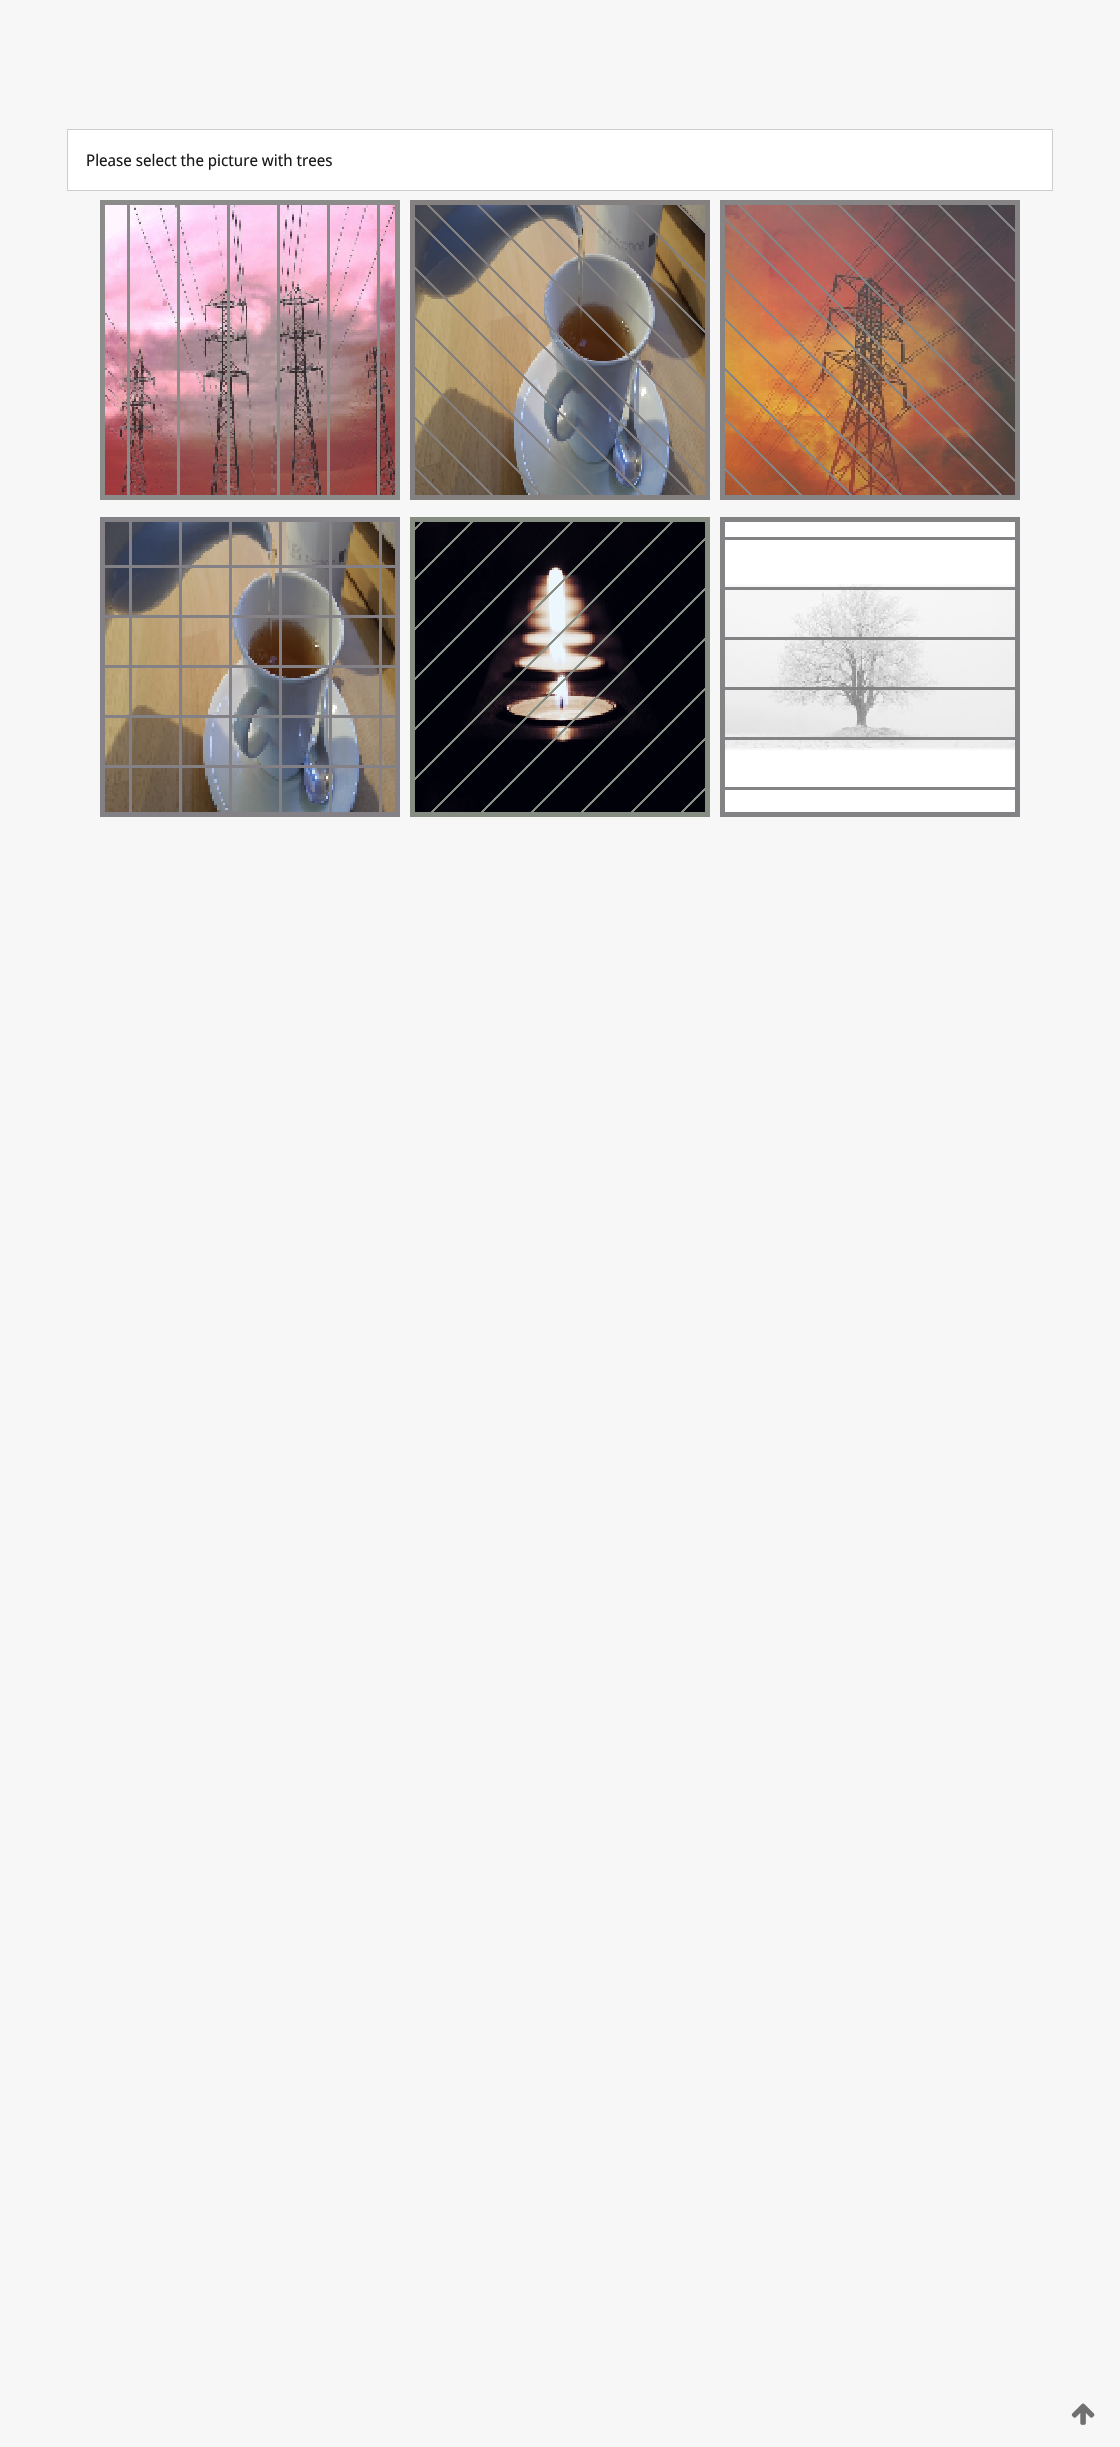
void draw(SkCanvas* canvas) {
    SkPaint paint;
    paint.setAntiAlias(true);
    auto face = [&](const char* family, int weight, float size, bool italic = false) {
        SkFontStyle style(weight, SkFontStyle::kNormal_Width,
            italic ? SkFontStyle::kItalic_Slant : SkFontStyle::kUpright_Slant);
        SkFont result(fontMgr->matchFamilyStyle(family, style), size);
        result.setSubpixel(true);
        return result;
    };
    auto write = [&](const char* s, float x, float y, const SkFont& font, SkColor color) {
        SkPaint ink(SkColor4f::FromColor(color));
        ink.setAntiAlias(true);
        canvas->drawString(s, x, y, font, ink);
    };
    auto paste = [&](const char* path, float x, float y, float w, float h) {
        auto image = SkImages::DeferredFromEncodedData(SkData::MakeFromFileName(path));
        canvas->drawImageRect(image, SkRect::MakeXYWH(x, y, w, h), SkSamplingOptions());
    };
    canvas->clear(SkColorSetRGB(247, 247, 247));
    paint.setColor(SK_ColorWHITE);
    canvas->drawRect(SkRect::MakeXYWH(67.5f, 129.5f, 985, 61), paint);
    paint.setStyle(SkPaint::kStroke_Style);
    paint.setStrokeWidth(1);
    paint.setColor(SkColorSetRGB(204, 204, 204));
    canvas->drawRect(SkRect::MakeXYWH(67.5f, 129.5f, 985, 61), paint);
    auto kFont1 = face("Noto Sans Display", 400, 16);
    write("Please select the picture with trees", 86, 166, kFont1, SkColorSetRGB(26, 26, 26));
    paste("pic1.png", 100, 200, 300, 300);
    paste("pic2.png", 410, 200, 300, 300);
    paste("pic3.png", 720, 200, 300, 300);
    paste("pic4.png", 100, 517, 300, 300);
    paste("pic5.png", 410, 517, 300, 300);
    paste("pic6.png", 720, 517, 300, 300);
    paste("pic7.png", 1071, 2403, 24, 22);
}
